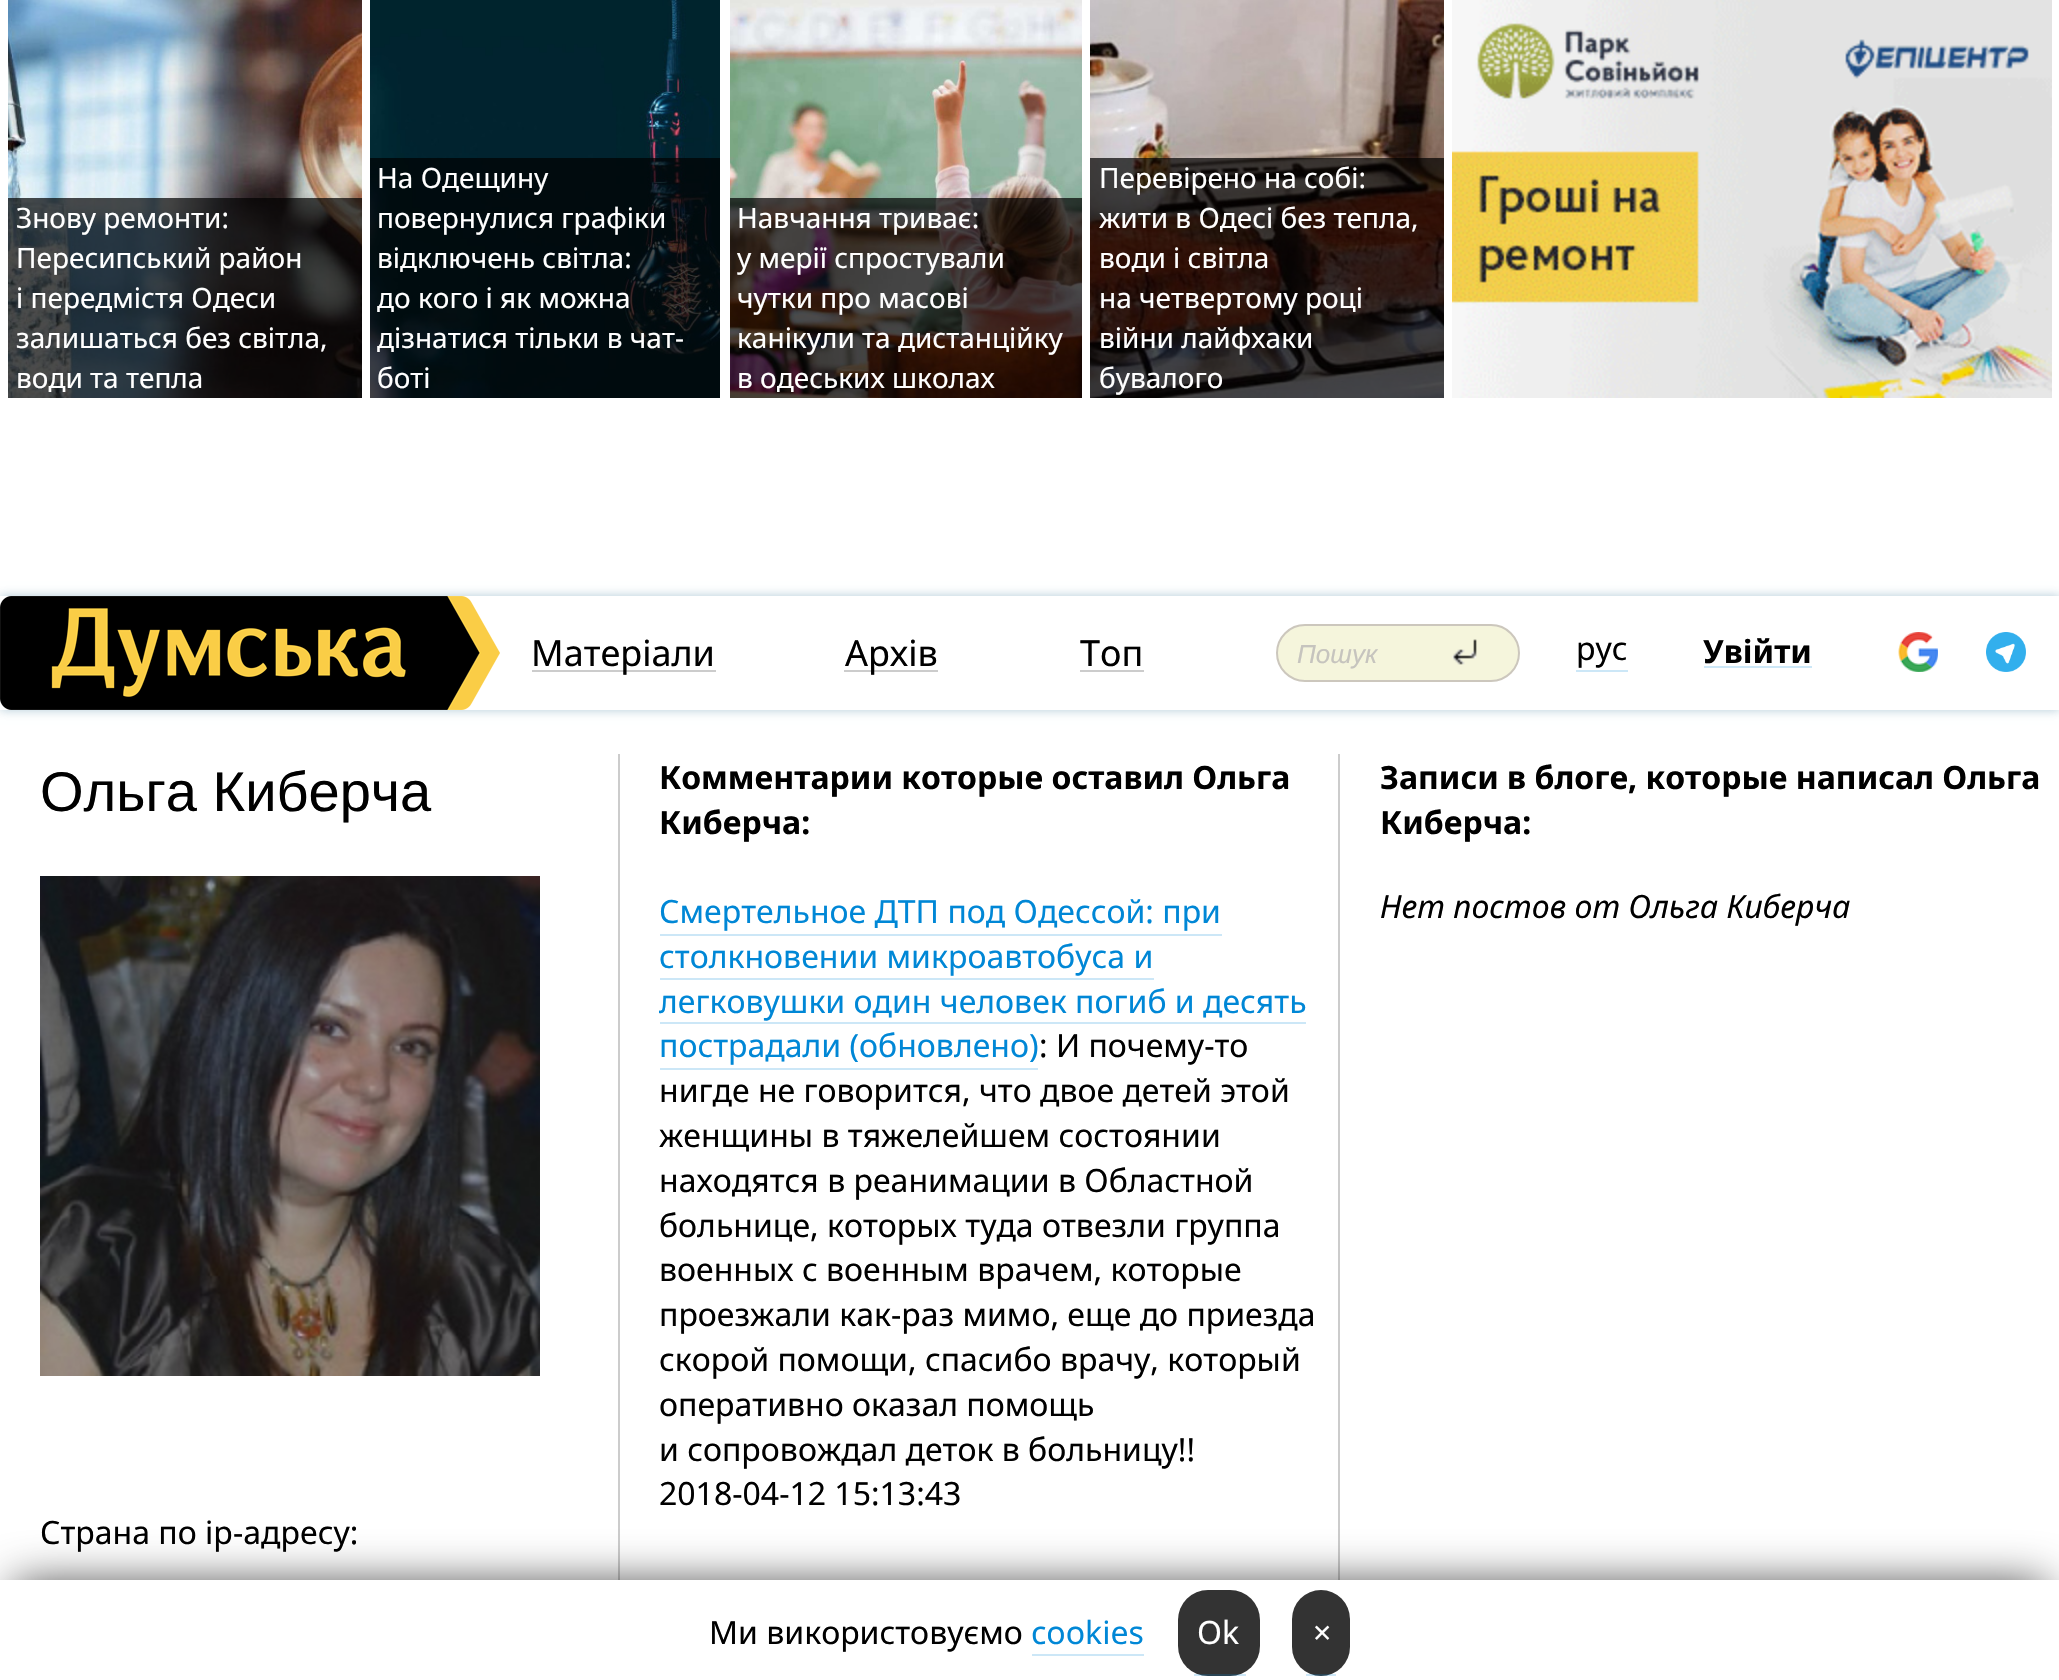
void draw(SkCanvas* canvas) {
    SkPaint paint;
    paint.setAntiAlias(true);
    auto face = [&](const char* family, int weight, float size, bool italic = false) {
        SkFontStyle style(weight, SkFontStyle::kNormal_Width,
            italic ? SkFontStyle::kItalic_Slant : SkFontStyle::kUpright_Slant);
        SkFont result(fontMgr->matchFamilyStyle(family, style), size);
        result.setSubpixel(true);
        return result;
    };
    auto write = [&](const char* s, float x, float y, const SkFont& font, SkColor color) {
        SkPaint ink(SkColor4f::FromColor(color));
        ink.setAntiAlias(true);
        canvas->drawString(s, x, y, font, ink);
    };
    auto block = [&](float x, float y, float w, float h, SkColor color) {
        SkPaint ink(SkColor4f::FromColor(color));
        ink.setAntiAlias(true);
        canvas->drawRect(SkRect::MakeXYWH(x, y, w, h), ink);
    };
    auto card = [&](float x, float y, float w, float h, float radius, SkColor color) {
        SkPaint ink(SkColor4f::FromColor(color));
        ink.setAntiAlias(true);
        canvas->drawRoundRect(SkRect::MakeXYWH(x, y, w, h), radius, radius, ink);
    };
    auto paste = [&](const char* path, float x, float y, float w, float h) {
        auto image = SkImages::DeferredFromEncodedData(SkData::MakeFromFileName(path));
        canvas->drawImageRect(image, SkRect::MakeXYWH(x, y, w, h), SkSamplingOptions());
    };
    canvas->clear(SK_ColorWHITE);
    paste("pic1.png", 8, 0, 354, 398);
    block(8, 198, 8, 200, SkColorSetARGB(179, 0, 0, 0));
    block(354, 198, 8, 200, SkColorSetARGB(179, 0, 0, 0));
    block(16, 198, 338, 200, SkColorSetARGB(179, 0, 0, 0));
    auto kFont1 = face("Noto Sans", 400, 28);
    write("Знову ремонти:", 16, 228, kFont1, SK_ColorWHITE);
    write("Пересипський район", 16, 268, kFont1, SK_ColorWHITE);
    write("і передмістя Одеси", 16, 308, kFont1, SK_ColorWHITE);
    write("залишаться без світла,", 16, 348, kFont1, SK_ColorWHITE);
    write("води та тепла", 16, 388, kFont1, SK_ColorWHITE);
    paste("pic2.png", 370, 0, 350, 398);
    block(370, 158, 8, 240, SkColorSetARGB(179, 0, 0, 0));
    block(712, 158, 8, 240, SkColorSetARGB(179, 0, 0, 0));
    block(378, 158, 334, 240, SkColorSetARGB(179, 0, 0, 0));
    write("На Одещину", 377, 188, kFont1, SK_ColorWHITE);
    write("повернулися графіки", 377, 228, kFont1, SK_ColorWHITE);
    write("відключень світла:", 377, 268, kFont1, SK_ColorWHITE);
    write("до кого і як можна", 377, 308, kFont1, SK_ColorWHITE);
    write("дізнатися тільки в чат-", 377, 348, kFont1, SK_ColorWHITE);
    write("боті", 377, 388, kFont1, SK_ColorWHITE);
    paste("pic3.png", 730, 0, 352, 398);
    block(730, 198, 8, 200, SkColorSetARGB(179, 0, 0, 0));
    block(1074, 198, 8, 200, SkColorSetARGB(179, 0, 0, 0));
    block(738, 198, 336, 200, SkColorSetARGB(179, 0, 0, 0));
    write("Навчання триває:", 737, 228, kFont1, SK_ColorWHITE);
    write("у мерії спростували", 737, 268, kFont1, SK_ColorWHITE);
    write("чутки про масові", 737, 308, kFont1, SK_ColorWHITE);
    write("канікули та дистанційку", 737, 348, kFont1, SK_ColorWHITE);
    write("в одеських школах", 737, 388, kFont1, SK_ColorWHITE);
    paste("pic4.png", 1090, 0, 354, 398);
    block(1090, 158, 8, 240, SkColorSetARGB(179, 0, 0, 0));
    block(1436, 158, 8, 240, SkColorSetARGB(179, 0, 0, 0));
    block(1098, 158, 338, 240, SkColorSetARGB(179, 0, 0, 0));
    write("Перевірено на собі:", 1099, 188, kFont1, SK_ColorWHITE);
    write("жити в Одесі без тепла,", 1099, 228, kFont1, SK_ColorWHITE);
    write("води і світла", 1099, 268, kFont1, SK_ColorWHITE);
    write("на четвертому році", 1099, 308, kFont1, SK_ColorWHITE);
    write("війни лайфхаки", 1099, 348, kFont1, SK_ColorWHITE);
    write("бувалого", 1099, 388, kFont1, SK_ColorWHITE);
    paste("pic5.png", 1452, 0, 600, 398);
    canvas->save();
    canvas->clipPath(SkPathBuilder(SkPathFillType::kEvenOdd).moveTo(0, 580).lineTo(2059, 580).lineTo(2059, 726).lineTo(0, 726).close().moveTo(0, 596).lineTo(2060, 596).lineTo(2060, 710).lineTo(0, 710).close().detach(), true);
    paint.setColor(SkColorSetARGB(77, 0, 79, 122));
    paint.setMaskFilter(SkMaskFilter::MakeBlur(kNormal_SkBlurStyle, 5));
    canvas->drawRect(SkRect::MakeXYWH(0, 596, 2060, 114), paint);
    paint.setMaskFilter(nullptr);
    canvas->restore();
    paste("pic6.png", 0, 596, 500, 114);
    block(532, 670, 184, 2, SkColorSetRGB(204, 204, 204));
    auto kFont2 = face("Noto Sans", 400, 36);
    write("Матеріали", 531, 666, kFont2, SK_ColorBLACK);
    block(844, 670, 94, 2, SkColorSetRGB(204, 204, 204));
    write("Архів", 845, 666, kFont2, SK_ColorBLACK);
    block(1080, 670, 64, 2, SkColorSetRGB(204, 204, 204));
    write("Топ", 1080, 666, kFont2, SK_ColorBLACK);
    paint.setColor(SkColorSetRGB(245, 245, 220));
    canvas->drawRoundRect(SkRect::MakeXYWH(1277, 625, 242, 56), 28, 28, paint);
    paint.setStyle(SkPaint::kStroke_Style);
    paint.setStrokeWidth(2);
    paint.setColor(SkColorSetRGB(204, 199, 189));
    canvas->drawRoundRect(SkRect::MakeXYWH(1277, 625, 242, 56), 28, 28, paint);
    auto kFont3 = face("Liberation Sans", 400, 26, true);
    write("Пошук", 1297, 663, kFont3, SkColorSetRGB(198, 196, 190));
    paste("pic7.png", 1452, 639, 25, 26);
    auto kFont4 = face("Noto Sans", 400, 32);
    write("рус", 1576, 660, kFont4, SK_ColorBLACK);
    block(1576, 670, 52, 2, SkColorSetRGB(204, 231, 247));
    block(1704, 666, 108, 2, SkColorSetRGB(204, 231, 247));
    auto kFont5 = face("Noto Sans", 700, 32);
    write("Увійти", 1703, 663, kFont5, SK_ColorBLACK);
    paste("pic8.png", 1898, 632, 40, 40);
    paste("pic9.png", 1986, 632, 40, 40);
    block(618, 754, 2, 826, SkColorSetRGB(204, 204, 204));
    auto kFont6 = face("Liberation Sans", 400, 56);
    write("Ольга Киберча", 40, 811, kFont6, SK_ColorBLACK);
    paste("pic10.png", 40, 876, 500, 500);
    write("Страна по ip-адресу:", 40, 1544, kFont4, SK_ColorBLACK);
    block(1338, 754, 2, 826, SkColorSetRGB(204, 204, 204));
    write("Комментарии которые оставил Ольга", 659, 789, kFont5, SK_ColorBLACK);
    write("Киберча:", 659, 834, kFont5, SK_ColorBLACK);
    write("Смертельное ДТП под Одессой: при", 659, 923, kFont4, SkColorSetRGB(0, 135, 214));
    block(660, 934, 562, 2, SkColorSetRGB(204, 231, 247));
    write("столкновении микроавтобуса и", 659, 968, kFont4, SkColorSetRGB(0, 135, 214));
    block(660, 978, 494, 2, SkColorSetRGB(204, 231, 247));
    write("легковушки один человек погиб и десять", 659, 1013, kFont4, SkColorSetRGB(0, 135, 214));
    block(660, 1022, 646, 2, SkColorSetRGB(204, 231, 247));
    write("пострадали (обновлено)", 659, 1057, kFont4, SkColorSetRGB(0, 135, 214));
    block(660, 1068, 378, 2, SkColorSetRGB(204, 231, 247));
    write(": И почему-то", 1039, 1057, kFont4, SK_ColorBLACK);
    write("нигде не говорится, что двое детей этой", 659, 1102, kFont4, SK_ColorBLACK);
    write("женщины в тяжелейшем состоянии", 659, 1147, kFont4, SK_ColorBLACK);
    write("находятся в реанимации в Областной", 659, 1192, kFont4, SK_ColorBLACK);
    write("больнице, которых туда отвезли группа", 659, 1237, kFont4, SK_ColorBLACK);
    write("военных с военным врачем, которые", 659, 1281, kFont4, SK_ColorBLACK);
    write("проезжали как-раз мимо, еще до приезда", 659, 1326, kFont4, SK_ColorBLACK);
    write("скорой помощи, спасибо врачу, который", 659, 1371, kFont4, SK_ColorBLACK);
    write("оперативно оказал помощь", 659, 1416, kFont4, SK_ColorBLACK);
    write("и сопровождал деток в больницу!!", 659, 1461, kFont4, SK_ColorBLACK);
    write("2018-04-12 15:13:43", 659, 1505, kFont4, SK_ColorBLACK);
    write("Записи в блоге, которые написал Ольга", 1380, 789, kFont5, SK_ColorBLACK);
    write("Киберча:", 1380, 834, kFont5, SK_ColorBLACK);
    auto kFont7 = face("Noto Sans", 400, 32, true);
    write("Нет постов от Ольга Киберча", 1380, 918, kFont7, SK_ColorBLACK);
    paint.setStyle(SkPaint::kFill_Style);
    paint.setColor(SkColorSetARGB(191, 0, 0, 0));
    paint.setMaskFilter(SkMaskFilter::MakeBlur(kNormal_SkBlurStyle, 23));
    canvas->drawRect(SkRect::MakeXYWH(14, 1584, 2032, 72), paint);
    paint.setMaskFilter(nullptr);
    block(0, 1580, 2059, 100, SK_ColorWHITE);
    write("Ми використовуємо", 709, 1644, kFont4, SK_ColorBLACK);
    write("cookies", 1031, 1644, kFont4, SkColorSetRGB(0, 135, 214));
    block(1032, 1654, 112, 2, SkColorSetRGB(204, 231, 247));
    card(1178, 1590, 82, 86, 30, SkColorSetRGB(51, 51, 51));
    write("Ok", 1197, 1644, kFont4, SK_ColorWHITE);
    block(1194, 1674, 52, 2, SkColorSetARGB(51, 0, 135, 214));
    card(1292, 1590, 58, 86, 29, SkColorSetRGB(51, 51, 51));
    write("×", 1313, 1644, kFont4, SK_ColorWHITE);
    block(1306, 1674, 30, 2, SkColorSetARGB(51, 0, 135, 214));
}
